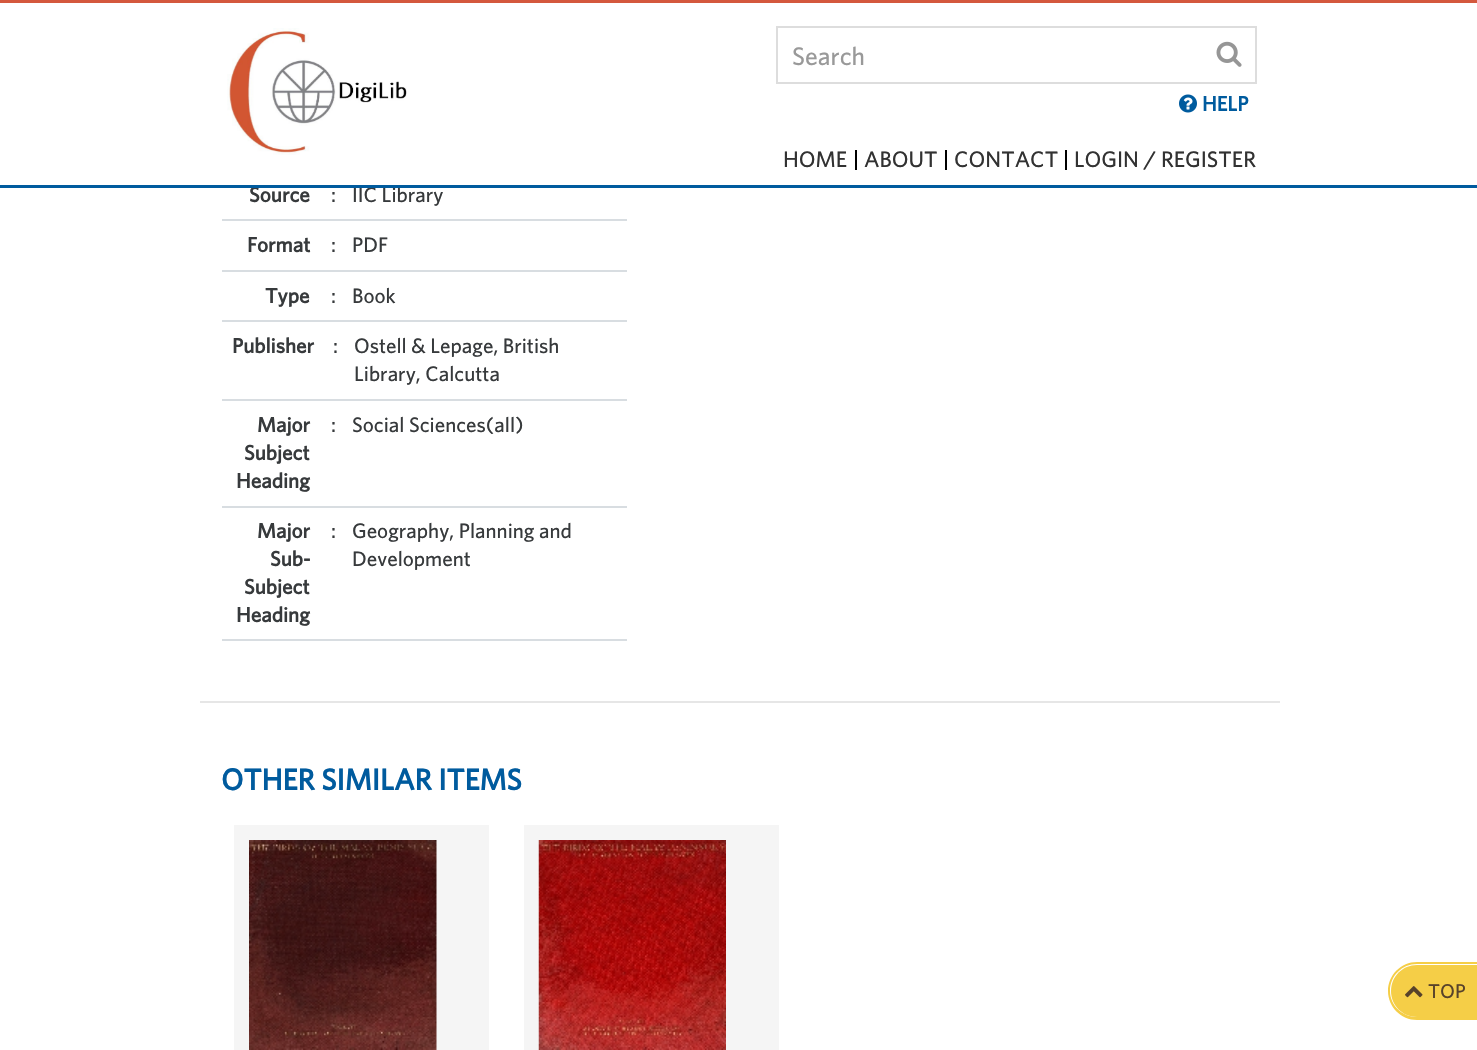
void draw(SkCanvas* canvas) {
    SkPaint paint;
    paint.setAntiAlias(true);
    auto face = [&](const char* family, int weight, float size, bool italic = false) {
        SkFontStyle style(weight, SkFontStyle::kNormal_Width,
            italic ? SkFontStyle::kItalic_Slant : SkFontStyle::kUpright_Slant);
        SkFont result(fontMgr->matchFamilyStyle(family, style), size);
        result.setSubpixel(true);
        return result;
    };
    auto write = [&](const char* s, float x, float y, const SkFont& font, SkColor color) {
        SkPaint ink(SkColor4f::FromColor(color));
        ink.setAntiAlias(true);
        canvas->drawString(s, x, y, font, ink);
    };
    auto block = [&](float x, float y, float w, float h, SkColor color) {
        SkPaint ink(SkColor4f::FromColor(color));
        ink.setAntiAlias(true);
        canvas->drawRect(SkRect::MakeXYWH(x, y, w, h), ink);
    };
    auto paste = [&](const char* path, float x, float y, float w, float h) {
        auto image = SkImages::DeferredFromEncodedData(SkData::MakeFromFileName(path));
        canvas->drawImageRect(image, SkRect::MakeXYWH(x, y, w, h), SkSamplingOptions());
    };
    canvas->clear(SK_ColorWHITE);
    block(0, 0, 1477, 3, SkColorSetRGB(212, 88, 61));
    paste("pic1.png", 227, 28, 180, 127);
    paint.setStyle(SkPaint::kStroke_Style);
    paint.setStrokeWidth(2);
    paint.setColor(SkColorSetRGB(221, 221, 221));
    canvas->drawRect(SkRect::MakeXYWH(777, 27, 479, 56), paint);
    auto kFont1 = face("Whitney", 500, 25.5f);
    write("Search", 792, 65, kFont1, SkColorSetRGB(153, 153, 153));
    paste("pic2.png", 1216, 41, 26, 26);
    paste("pic3.png", 1179, 94, 18, 19);
    auto kFont2 = face("Whitney", 700, 21);
    write("HELP", 1202, 111, kFont2, SkColorSetRGB(0, 91, 158));
    block(855, 150, 2, 20, SK_ColorBLACK);
    auto kFont3 = face("Whitney", 500, 22.5f);
    write("HOME", 783, 167, kFont3, SkColorSetRGB(50, 50, 50));
    block(945, 150, 2, 20, SK_ColorBLACK);
    write("ABOUT", 864, 167, kFont3, SkColorSetRGB(50, 50, 50));
    block(1065, 150, 2, 20, SK_ColorBLACK);
    write("CONTACT", 954, 167, kFont3, SkColorSetRGB(50, 50, 50));
    write("LOGIN / REGISTER", 1074, 167, kFont3, SkColorSetRGB(50, 50, 50));
    write("Source", 249, 202, kFont2, SkColorSetRGB(55, 58, 60));
    auto kFont4 = face("Whitney", 500, 21);
    write("IIC Library", 352, 202, kFont4, SkColorSetRGB(55, 58, 60));
    block(0, 185, 1477, 3, SkColorSetRGB(0, 91, 158));
    block(222, 219, 405, 2, SkColorSetRGB(216, 221, 225));
    write(":", 331, 202, kFont4, SkColorSetRGB(55, 58, 60));
    block(222, 270, 405, 2, SkColorSetRGB(216, 221, 225));
    write("Format", 247, 252, kFont2, SkColorSetRGB(55, 58, 60));
    write(":", 331, 252, kFont4, SkColorSetRGB(55, 58, 60));
    write("PDF", 352, 252, kFont4, SkColorSetRGB(55, 58, 60));
    block(222, 320, 405, 2, SkColorSetRGB(216, 221, 225));
    write("Type", 265, 303, kFont2, SkColorSetRGB(55, 58, 60));
    write(":", 331, 303, kFont4, SkColorSetRGB(55, 58, 60));
    write("Book", 352, 303, kFont4, SkColorSetRGB(55, 58, 60));
    block(222, 399, 405, 2, SkColorSetRGB(216, 221, 225));
    write("Publisher", 232, 353, kFont2, SkColorSetRGB(55, 58, 60));
    write(":", 333, 353, kFont4, SkColorSetRGB(55, 58, 60));
    write("Ostell & Lepage, British", 354, 353, kFont4, SkColorSetRGB(55, 58, 60));
    write("Library, Calcutta", 354, 381, kFont4, SkColorSetRGB(55, 58, 60));
    block(222, 506, 405, 2, SkColorSetRGB(216, 221, 225));
    write("Major", 257, 432, kFont2, SkColorSetRGB(55, 58, 60));
    write("Subject", 244, 460, kFont2, SkColorSetRGB(55, 58, 60));
    write("Heading", 236, 488, kFont2, SkColorSetRGB(55, 58, 60));
    write(":", 331, 432, kFont4, SkColorSetRGB(55, 58, 60));
    write("Social Sciences(all)", 352, 432, kFont4, SkColorSetRGB(55, 58, 60));
    block(222, 639, 405, 2, SkColorSetRGB(216, 221, 225));
    write("Major", 257, 538, kFont2, SkColorSetRGB(55, 58, 60));
    write("Sub-", 270, 566, kFont2, SkColorSetRGB(55, 58, 60));
    write("Subject", 244, 594, kFont2, SkColorSetRGB(55, 58, 60));
    write("Heading", 236, 622, kFont2, SkColorSetRGB(55, 58, 60));
    write(":", 331, 538, kFont4, SkColorSetRGB(55, 58, 60));
    write("Geography, Planning and", 352, 538, kFont4, SkColorSetRGB(55, 58, 60));
    write("Development", 352, 566, kFont4, SkColorSetRGB(55, 58, 60));
    block(200, 701, 1080, 2, SkColorSetRGB(230, 230, 230));
    auto kFont5 = face("Whitney", 700, 30);
    write("OTHER SIMILAR ITEMS", 221, 790, kFont5, SkColorSetRGB(0, 91, 158));
    block(234, 825, 255, 225, SkColorSetRGB(245, 245, 245));
    paste("pic4.png", 249, 840, 188, 210);
    block(524, 825, 255, 225, SkColorSetRGB(245, 245, 245));
    paste("pic5.png", 538, 840, 188, 210);
    paint.setStyle(SkPaint::kFill_Style);
    paint.setColor(SkColorSetRGB(245, 206, 71));
    canvas->drawPath(SkPathBuilder().moveTo(1417, 965).lineTo(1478, 965).lineTo(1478, 1017).lineTo(1417, 1017).cubicTo(1402.5f, 1017, 1391, 1005.5f, 1391, 991).cubicTo(1391, 976.5f, 1402.5f, 965, 1417, 965).close().detach(), paint);
    canvas->drawPath(SkPathBuilder(SkPathFillType::kEvenOdd).moveTo(1417, 962).lineTo(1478, 962).lineTo(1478, 1020).lineTo(1417, 1020).cubicTo(1401, 1020, 1388, 1007, 1388, 991).cubicTo(1388, 975, 1401, 962, 1417, 962).close().moveTo(1417, 964).lineTo(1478, 964).lineTo(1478, 1017).lineTo(1417, 1017).cubicTo(1402, 1017, 1390, 1005, 1390, 991).cubicTo(1390, 976, 1402, 964, 1417, 964).close().detach(), paint);
    paste("pic6.png", 1405, 986, 18, 12);
    auto kFont6 = face("Whitney", 500, 20);
    write("TOP", 1428, 998, kFont6, SkColorSetRGB(87, 66, 42));
}
